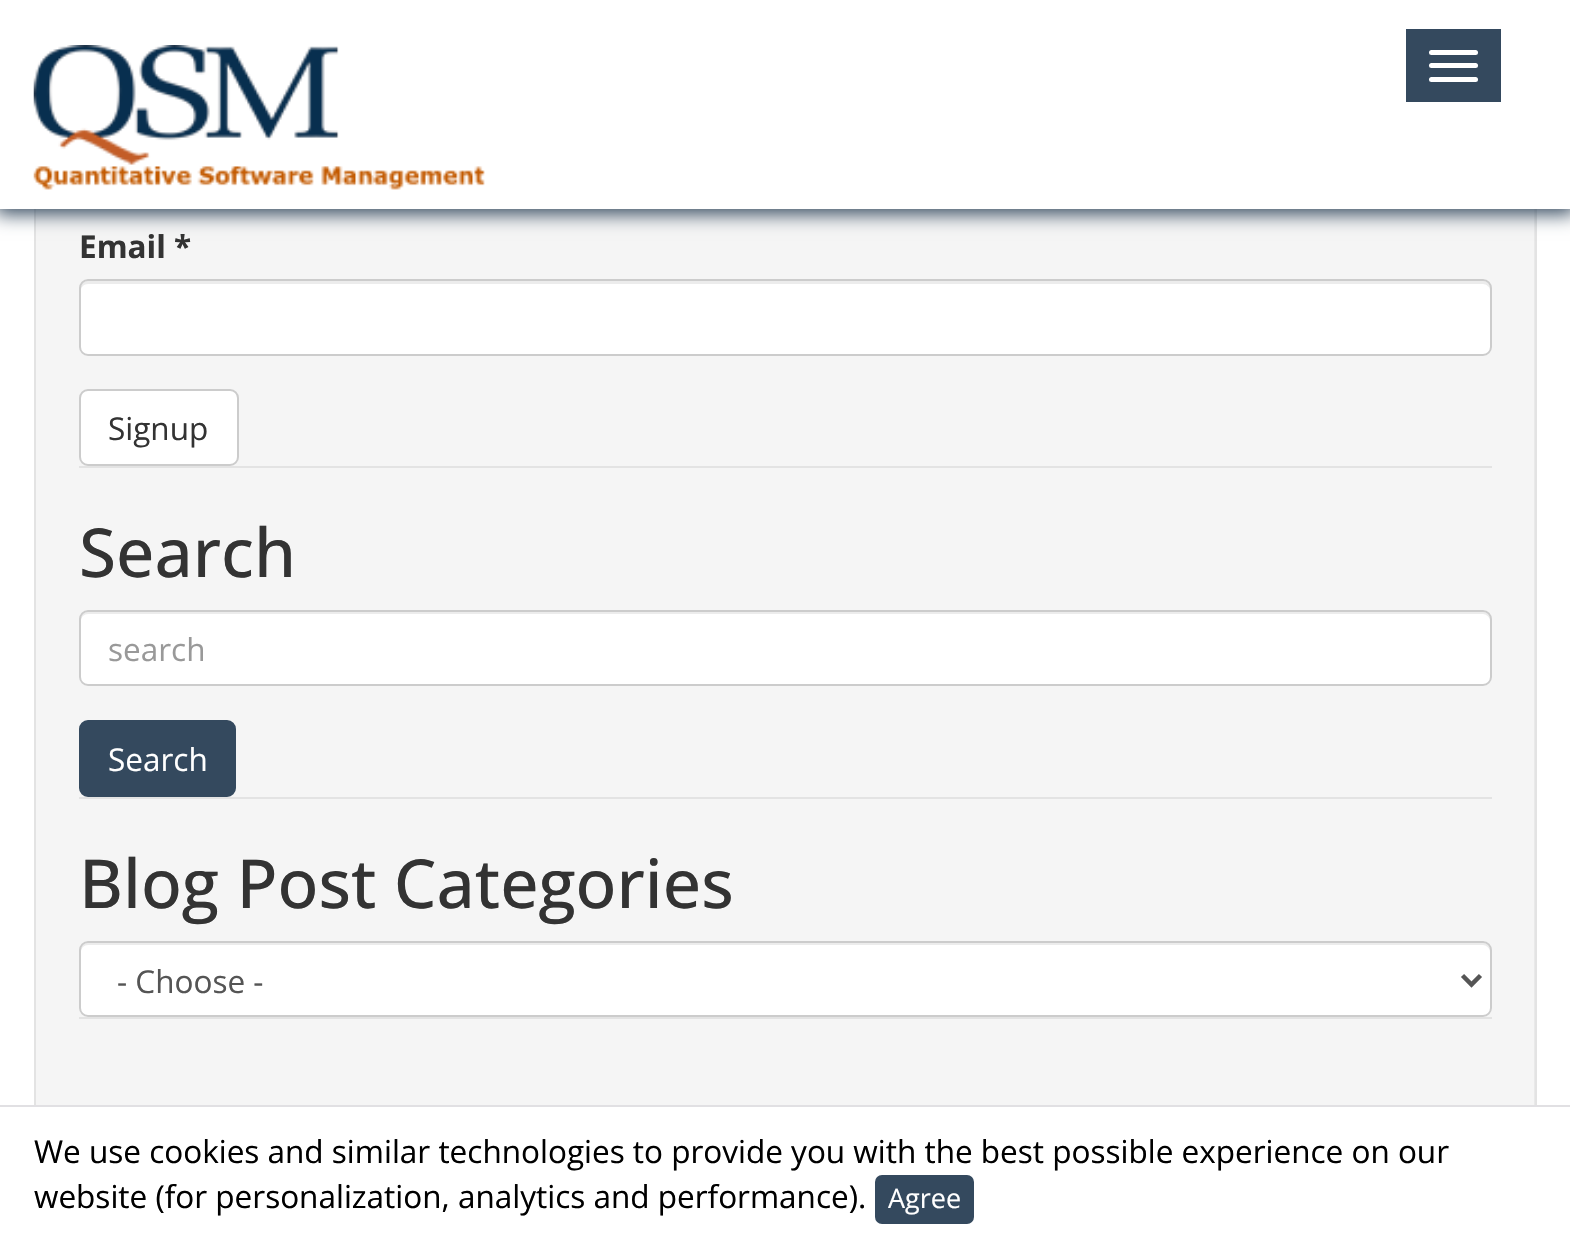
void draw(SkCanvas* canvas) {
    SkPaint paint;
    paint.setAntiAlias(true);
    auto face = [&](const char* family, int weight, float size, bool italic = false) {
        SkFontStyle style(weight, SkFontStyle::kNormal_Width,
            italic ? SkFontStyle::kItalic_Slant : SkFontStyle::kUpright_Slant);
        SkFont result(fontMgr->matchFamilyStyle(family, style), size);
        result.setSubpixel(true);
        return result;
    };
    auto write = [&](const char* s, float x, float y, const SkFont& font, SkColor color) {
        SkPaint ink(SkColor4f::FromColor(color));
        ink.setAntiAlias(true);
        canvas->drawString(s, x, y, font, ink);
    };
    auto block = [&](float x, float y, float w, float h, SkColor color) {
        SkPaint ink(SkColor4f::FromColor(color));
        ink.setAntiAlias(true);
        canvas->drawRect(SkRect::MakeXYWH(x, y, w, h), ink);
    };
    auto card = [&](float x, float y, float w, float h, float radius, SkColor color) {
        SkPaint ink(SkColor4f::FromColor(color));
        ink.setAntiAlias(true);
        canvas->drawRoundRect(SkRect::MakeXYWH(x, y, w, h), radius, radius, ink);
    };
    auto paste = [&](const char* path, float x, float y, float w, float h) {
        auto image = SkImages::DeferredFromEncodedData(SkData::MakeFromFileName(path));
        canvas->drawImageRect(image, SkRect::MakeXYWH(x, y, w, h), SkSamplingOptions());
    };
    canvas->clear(SK_ColorWHITE);
    block(36, 209, 1498, 896, SkColorSetRGB(245, 245, 245));
    paint.setColor(SkColorSetRGB(233, 233, 233));
    canvas->drawPath(SkPathBuilder().moveTo(43, -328).lineTo(1528, -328).cubicTo(1531, -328, 1534, -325, 1534, -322).lineTo(1534, 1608).cubicTo(1535, 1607, 1535, 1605, 1535, 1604).lineTo(1535, -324).cubicTo(1535, -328, 1532, -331, 1528, -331).lineTo(43, -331).cubicTo(39, -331, 36, -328, 36, -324).lineTo(36, -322).cubicTo(36, -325, 39, -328, 43, -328).close().detach(), paint);
    paint.setStyle(SkPaint::kStroke_Style);
    paint.setStrokeWidth(2);
    paint.setColor(SkColorSetRGB(227, 227, 227));
    canvas->drawRect(SkRect::MakeXYWH(35, -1, 1501, 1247), paint);
    paint.setStyle(SkPaint::kFill_Style);
    paint.setColor(SkColorSetRGB(52, 73, 94));
    paint.setMaskFilter(SkMaskFilter::MakeBlur(kNormal_SkBlurStyle, 9));
    canvas->drawRect(SkRect::MakeXYWH(-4, -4, 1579, 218), paint);
    paint.setMaskFilter(nullptr);
    block(0, 0, 1570, 209, SK_ColorWHITE);
    paste("pic1.png", 33, 45, 452, 145);
    block(1406, 29, 95, 73, SkColorSetRGB(52, 73, 94));
    card(1429, 50, 49, 5, 2.5f, SK_ColorWHITE);
    card(1429, 63, 49, 5, 2.5f, SK_ColorWHITE);
    card(1429, 77, 49, 5, 2.5f, SK_ColorWHITE);
    block(79, 466, 1413, 2, SkColorSetRGB(227, 227, 227));
    auto kFont1 = face("Open Sans", 700, 31.5f);
    write("Email *", 79, 258, kFont1, SkColorSetRGB(51, 51, 51));
    card(79, 279, 1413, 77, 9, SK_ColorWHITE);
    paint.setColor(SkColorSetRGB(236, 236, 236));
    canvas->drawPath(SkPathBuilder().moveTo(88, 284).lineTo(1483, 284).cubicTo(1486, 284, 1490, 287, 1490, 290).lineTo(1490, 288).cubicTo(1490, 284, 1487, 281, 1483, 281).lineTo(88, 281).cubicTo(84, 281, 81, 284, 81, 288).lineTo(81, 290).cubicTo(81, 287, 84, 284, 88, 284).close().detach(), paint);
    paint.setStyle(SkPaint::kStroke_Style);
    paint.setColor(SkColorSetRGB(204, 204, 204));
    canvas->drawRoundRect(SkRect::MakeXYWH(80, 280, 1411, 75), 8, 8, paint);
    paint.setStyle(SkPaint::kFill_Style);
    paint.setColor(SK_ColorWHITE);
    canvas->drawRoundRect(SkRect::MakeXYWH(80, 390, 158, 75), 8, 8, paint);
    paint.setStyle(SkPaint::kStroke_Style);
    paint.setColor(SkColorSetRGB(204, 204, 204));
    canvas->drawRoundRect(SkRect::MakeXYWH(80, 390, 158, 75), 8, 8, paint);
    auto kFont2 = face("Open Sans", 400, 31.5f);
    write("Signup", 108, 440, kFont2, SkColorSetRGB(51, 51, 51));
    block(79, 797, 1413, 2, SkColorSetRGB(227, 227, 227));
    auto kFont3 = face("Open Sans", 500, 67.5f);
    write("Search", 79, 577, kFont3, SkColorSetRGB(51, 51, 51));
    card(79, 610, 1413, 76, 9, SK_ColorWHITE);
    paint.setStyle(SkPaint::kFill_Style);
    paint.setColor(SkColorSetRGB(236, 236, 236));
    canvas->drawPath(SkPathBuilder().moveTo(88, 614).lineTo(1483, 614).cubicTo(1486, 614, 1490, 617, 1490, 621).lineTo(1490, 619).cubicTo(1490, 615, 1487, 612, 1483, 612).lineTo(88, 612).cubicTo(84, 612, 81, 615, 81, 619).lineTo(81, 621).cubicTo(81, 617, 84, 614, 88, 614).close().detach(), paint);
    paint.setStyle(SkPaint::kStroke_Style);
    paint.setColor(SkColorSetRGB(204, 204, 204));
    canvas->drawRoundRect(SkRect::MakeXYWH(80, 611, 1411, 74), 8, 8, paint);
    write("search", 108, 661, kFont2, SkColorSetRGB(153, 153, 153));
    paint.setStyle(SkPaint::kFill_Style);
    paint.setColor(SkColorSetRGB(52, 73, 94));
    canvas->drawRoundRect(SkRect::MakeXYWH(80, 721, 155, 75), 8, 8, paint);
    paint.setStyle(SkPaint::kStroke_Style);
    canvas->drawRoundRect(SkRect::MakeXYWH(80, 721, 155, 75), 8, 8, paint);
    write("Search", 108, 771, kFont2, SK_ColorWHITE);
    block(79, 1017, 1413, 2, SkColorSetRGB(227, 227, 227));
    write("Blog Post Categories", 79, 908, kFont3, SkColorSetRGB(51, 51, 51));
    card(79, 941, 1413, 76, 9, SK_ColorWHITE);
    paint.setStyle(SkPaint::kFill_Style);
    paint.setColor(SkColorSetRGB(236, 236, 236));
    canvas->drawPath(SkPathBuilder().moveTo(88, 945).lineTo(1483, 945).cubicTo(1486, 945, 1490, 948, 1490, 952).lineTo(1490, 950).cubicTo(1490, 946, 1487, 943, 1483, 943).lineTo(88, 943).cubicTo(84, 943, 81, 946, 81, 950).lineTo(81, 952).cubicTo(81, 948, 84, 945, 88, 945).close().detach(), paint);
    paint.setStyle(SkPaint::kStroke_Style);
    paint.setColor(SkColorSetRGB(204, 204, 204));
    canvas->drawRoundRect(SkRect::MakeXYWH(80, 942, 1411, 74), 8, 8, paint);
    paint.setStrokeWidth(4.5f);
    paint.setColor(SkColorSetRGB(85, 85, 85));
    canvas->drawPath(SkPathBuilder().moveTo(1462.5f, 975.5f).lineTo(1471.5f, 984.5f).lineTo(1480.5f, 975.5f).detach(), paint);
    write("- Choose -", 117, 993, kFont2, SkColorSetRGB(85, 85, 85));
    block(34, 1107, 1503, 138, SK_ColorWHITE);
    block(0, 1105, 1570, 2, SkColorSetRGB(225, 224, 227));
    write("We use cookies and similar technologies to provide you with the best possible experience on our", 34, 1163, kFont2, SK_ColorBLACK);
    write("website (for personalization, analytics and performance).", 34, 1208, kFont2, SK_ColorBLACK);
    paint.setStyle(SkPaint::kFill_Style);
    paint.setColor(SkColorSetRGB(52, 73, 94));
    canvas->drawRoundRect(SkRect::MakeXYWH(876, 1176, 97, 47), 6, 6, paint);
    paint.setStyle(SkPaint::kStroke_Style);
    paint.setStrokeWidth(2);
    canvas->drawRoundRect(SkRect::MakeXYWH(876, 1176, 97, 47), 6, 6, paint);
    auto kFont4 = face("Open Sans", 400, 27);
    write("Agree", 888, 1208, kFont4, SK_ColorWHITE);
}
